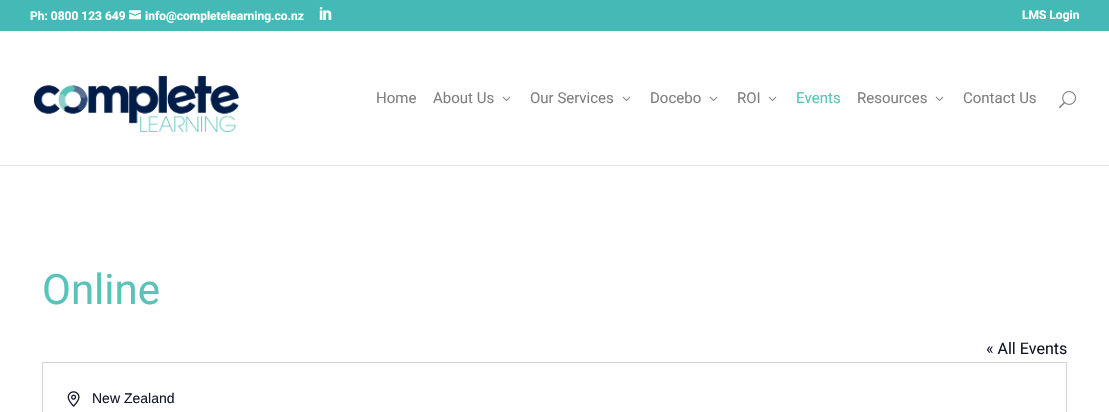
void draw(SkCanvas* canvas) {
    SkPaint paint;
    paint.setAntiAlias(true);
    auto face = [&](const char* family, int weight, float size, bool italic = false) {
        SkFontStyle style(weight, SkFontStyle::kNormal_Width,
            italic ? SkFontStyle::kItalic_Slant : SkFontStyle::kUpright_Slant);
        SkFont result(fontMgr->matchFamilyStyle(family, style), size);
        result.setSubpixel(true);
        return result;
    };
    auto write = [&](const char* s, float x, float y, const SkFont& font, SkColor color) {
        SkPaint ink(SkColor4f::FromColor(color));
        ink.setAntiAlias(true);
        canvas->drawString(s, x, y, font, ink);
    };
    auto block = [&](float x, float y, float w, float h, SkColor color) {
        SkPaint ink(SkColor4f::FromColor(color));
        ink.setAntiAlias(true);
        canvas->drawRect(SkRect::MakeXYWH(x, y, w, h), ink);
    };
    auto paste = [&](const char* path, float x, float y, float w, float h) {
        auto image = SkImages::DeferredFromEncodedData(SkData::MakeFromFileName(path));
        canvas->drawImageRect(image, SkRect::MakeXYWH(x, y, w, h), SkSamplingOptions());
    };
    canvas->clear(SK_ColorWHITE);
    block(0, 0, 1109, 31, SkColorSetRGB(68, 186, 182));
    auto kFont1 = face("Roboto", 700, 12);
    write("Ph: 0800 123 649", 30, 20, kFont1, SK_ColorWHITE);
    paste("pic1.png", 129, 10, 12, 10);
    write("info@completelearning.co.nz", 145, 20, kFont1, SK_ColorWHITE);
    paste("pic2.png", 319, 6, 13, 14);
    write("LMS Login", 1022, 19, kFont1, SK_ColorWHITE);
    block(0, 165, 1109, 1, SkColorSetRGB(230, 230, 230));
    paste("pic3.png", 34, 67, 205, 65);
    auto kFont2 = face("Roboto", 400, 15);
    write("Home", 376, 103, kFont2, SkColorSetRGB(127, 127, 127));
    write("About Us", 433, 103, kFont2, SkColorSetRGB(127, 127, 127));
    paste("pic4.png", 502, 96, 9, 5);
    write("Our Services", 530, 103, kFont2, SkColorSetRGB(127, 127, 127));
    paste("pic4.png", 622, 96, 9, 5);
    write("Docebo", 650, 103, kFont2, SkColorSetRGB(127, 127, 127));
    paste("pic4.png", 709, 96, 9, 5);
    write("ROI", 737, 103, kFont2, SkColorSetRGB(127, 127, 127));
    paste("pic4.png", 768, 96, 9, 5);
    write("Events", 796, 103, kFont2, SkColorSetRGB(88, 195, 184));
    write("Resources", 857, 103, kFont2, SkColorSetRGB(127, 127, 127));
    paste("pic4.png", 935, 96, 9, 5);
    write("Contact Us", 963, 103, kFont2, SkColorSetRGB(127, 127, 127));
    paste("pic5.png", 1059, 91, 17, 18);
    auto kFont3 = face("Roboto", 400, 42);
    write("Online", 42, 304, kFont3, SkColorSetRGB(88, 195, 184));
    auto kFont4 = face("Roboto", 400, 16);
    write("« All Events", 986, 354, kFont4, SkColorSetRGB(20, 24, 39));
    paint.setStyle(SkPaint::kStroke_Style);
    paint.setStrokeWidth(1);
    paint.setColor(SkColorSetRGB(213, 213, 213));
    canvas->drawRect(SkRect::MakeXYWH(42.5f, 362.5f, 1024, 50), paint);
    paste("pic6.png", 67, 391, 13, 16);
    auto kFont5 = face("Liberation Sans", 400, 14);
    write("New Zealand", 92, 403, kFont5, SkColorSetRGB(20, 24, 39));
}
